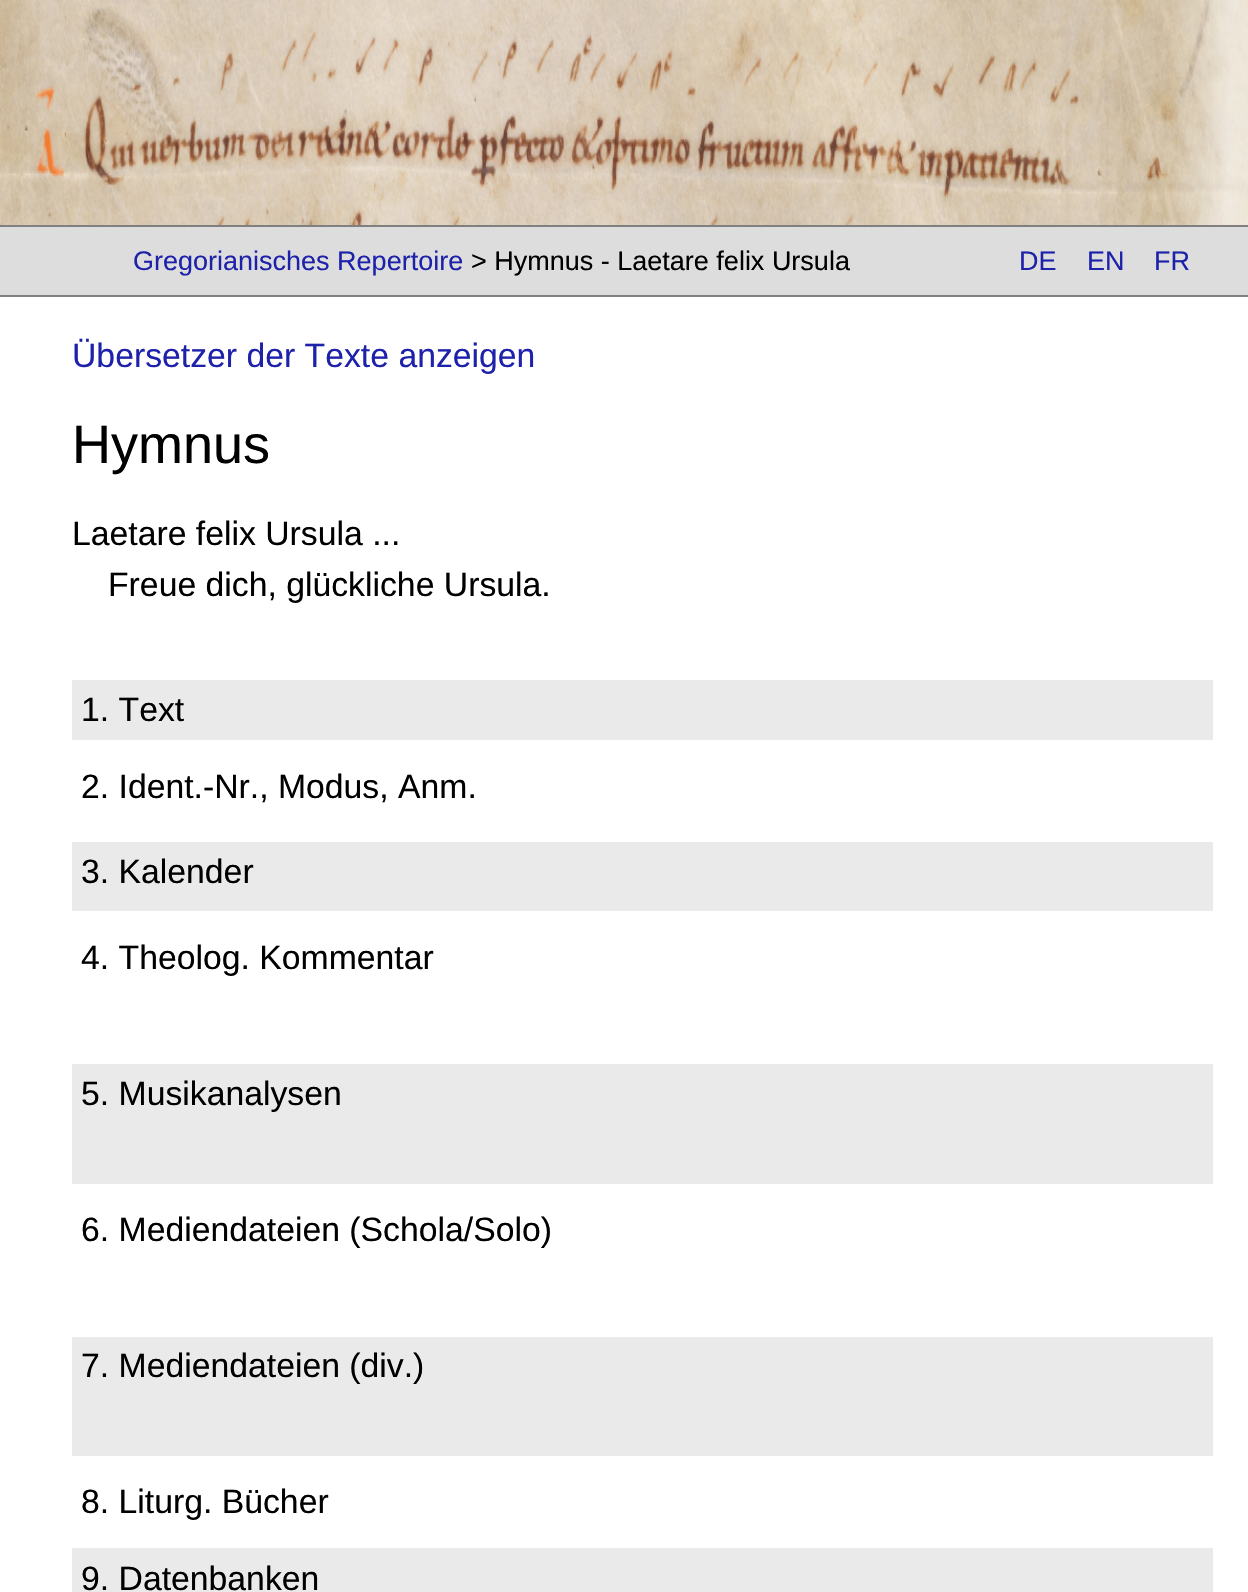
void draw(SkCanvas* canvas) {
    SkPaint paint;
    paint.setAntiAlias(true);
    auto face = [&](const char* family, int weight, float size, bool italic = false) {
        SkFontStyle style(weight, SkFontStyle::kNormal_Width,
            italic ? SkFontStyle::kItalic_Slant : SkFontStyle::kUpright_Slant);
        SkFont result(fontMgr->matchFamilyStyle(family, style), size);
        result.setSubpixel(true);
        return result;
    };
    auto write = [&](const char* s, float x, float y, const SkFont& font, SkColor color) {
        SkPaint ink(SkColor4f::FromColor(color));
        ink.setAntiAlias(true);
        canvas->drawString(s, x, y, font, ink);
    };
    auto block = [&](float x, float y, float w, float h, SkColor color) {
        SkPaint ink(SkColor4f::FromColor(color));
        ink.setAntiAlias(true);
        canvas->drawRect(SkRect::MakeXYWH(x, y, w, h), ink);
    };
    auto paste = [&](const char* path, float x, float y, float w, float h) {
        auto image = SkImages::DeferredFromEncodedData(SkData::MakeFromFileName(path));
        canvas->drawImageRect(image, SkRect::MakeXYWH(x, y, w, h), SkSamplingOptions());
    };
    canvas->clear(SK_ColorWHITE);
    paste("pic1.png", 0, 0, 1248, 225);
    block(0, 227, 1248, 68, SkColorSetRGB(221, 221, 221));
    block(0, 225, 1248, 2, SkColorSetRGB(128, 128, 128));
    block(0, 295, 1248, 2, SkColorSetRGB(128, 128, 128));
    auto kFont1 = face("Liberation Sans", 400, 27);
    write("Gregorianisches Repertoire", 133, 270, kFont1, SkColorSetRGB(30, 34, 170));
    write("> Hymnus - Laetare felix Ursula", 471, 270, kFont1, SK_ColorBLACK);
    write("DE", 1019, 270, kFont1, SkColorSetRGB(30, 34, 170));
    write("EN", 1087, 270, kFont1, SkColorSetRGB(30, 34, 170));
    write("FR", 1154, 270, kFont1, SkColorSetRGB(30, 34, 170));
    auto kFont2 = face("Liberation Sans", 400, 33.75f);
    write("Übersetzer der Texte anzeigen", 72, 367, kFont2, SkColorSetRGB(30, 34, 170));
    auto kFont3 = face("Liberation Sans", 400, 54);
    write("Hymnus", 72, 463, kFont3, SK_ColorBLACK);
    write("Laetare felix Ursula ...", 72, 545, kFont2, SK_ColorBLACK);
    write("Freue dich, glückliche Ursula.", 108, 596, kFont2, SK_ColorBLACK);
    block(72, 680, 1141, 60, SkColorSetRGB(234, 234, 234));
    write("1. Text", 81, 721, kFont2, SK_ColorBLACK);
    write("2. Ident.-Nr., Modus, Anm.", 81, 798, kFont2, SK_ColorBLACK);
    block(72, 842, 1141, 69, SkColorSetRGB(234, 234, 234));
    write("3. Kalender", 81, 883, kFont2, SK_ColorBLACK);
    write("4. Theolog. Kommentar", 81, 969, kFont2, SK_ColorBLACK);
    block(72, 1064, 1141, 120, SkColorSetRGB(234, 234, 234));
    write("5. Musikanalysen", 81, 1105, kFont2, SK_ColorBLACK);
    write("6. Mediendateien (Schola/Solo)", 81, 1241, kFont2, SK_ColorBLACK);
    block(72, 1337, 1141, 119, SkColorSetRGB(234, 234, 234));
    write("7. Mediendateien (div.)", 81, 1377, kFont2, SK_ColorBLACK);
    write("8. Liturg. Bücher", 81, 1513, kFont2, SK_ColorBLACK);
    block(72, 1548, 1141, 44, SkColorSetRGB(234, 234, 234));
    write("9. Datenbanken", 81, 1590, kFont2, SK_ColorBLACK);
}
